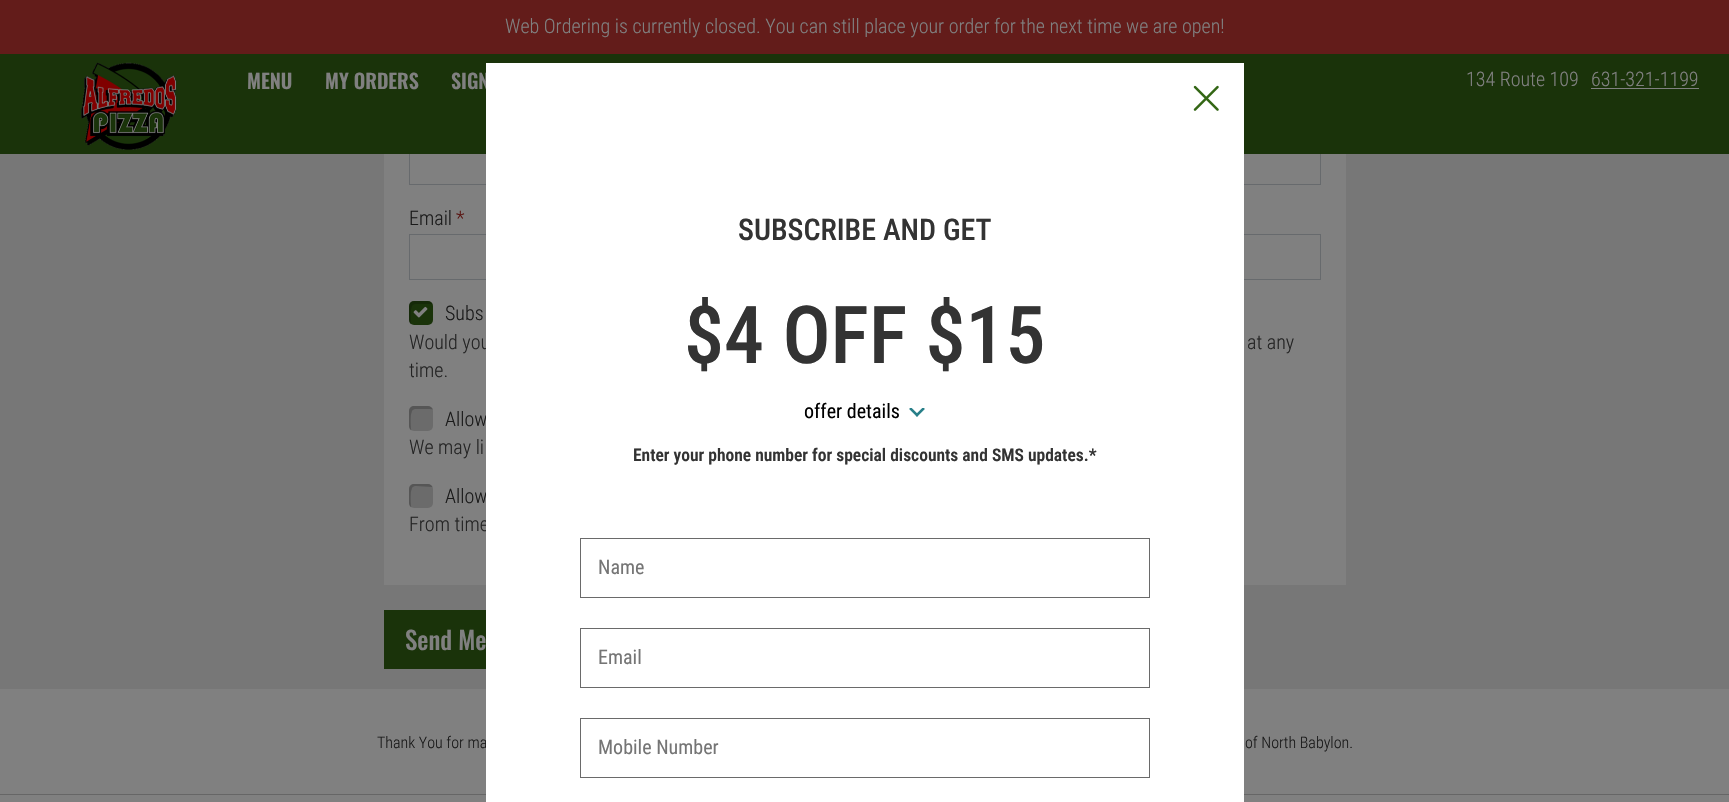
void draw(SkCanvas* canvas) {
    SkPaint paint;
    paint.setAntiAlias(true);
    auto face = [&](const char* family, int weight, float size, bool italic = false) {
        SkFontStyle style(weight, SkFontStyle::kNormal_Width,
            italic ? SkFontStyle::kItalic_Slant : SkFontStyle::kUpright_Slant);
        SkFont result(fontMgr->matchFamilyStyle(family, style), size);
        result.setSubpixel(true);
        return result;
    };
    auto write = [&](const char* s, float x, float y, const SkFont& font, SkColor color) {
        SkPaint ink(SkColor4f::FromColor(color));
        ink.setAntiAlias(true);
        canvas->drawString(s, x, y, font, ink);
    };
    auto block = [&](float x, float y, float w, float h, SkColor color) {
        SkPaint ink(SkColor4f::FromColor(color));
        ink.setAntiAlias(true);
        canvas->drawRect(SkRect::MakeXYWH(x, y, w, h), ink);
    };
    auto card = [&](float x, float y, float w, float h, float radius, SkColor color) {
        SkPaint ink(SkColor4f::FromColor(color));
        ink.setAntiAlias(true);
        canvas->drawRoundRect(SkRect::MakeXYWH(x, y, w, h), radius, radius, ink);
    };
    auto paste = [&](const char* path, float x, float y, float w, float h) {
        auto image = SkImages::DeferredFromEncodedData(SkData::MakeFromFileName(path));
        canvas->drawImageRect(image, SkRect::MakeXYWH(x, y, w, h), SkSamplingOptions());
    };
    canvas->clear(SkColorSetRGB(128, 128, 128));
    block(0, 154, 1729, 535, SkColorSetRGB(119, 119, 119));
    block(384, 154, 962, 431, SkColorSetRGB(128, 128, 128));
    paint.setStyle(SkPaint::kStroke_Style);
    paint.setStrokeWidth(1);
    paint.setColor(SkColorSetRGB(103, 106, 109));
    canvas->drawRect(SkRect::MakeXYWH(409.5f, 140.5f, 911, 44), paint);
    block(0, 54, 1729, 100, SkColorSetRGB(26, 51, 10));
    block(0, 0, 1729, 54, SkColorSetRGB(99, 28, 26));
    auto kFont1 = face("Roboto Condensed", 300, 20);
    write("Web Ordering is currently closed. You can still place your order for the next time we are open!", 505, 33, kFont1, SkColorSetRGB(128, 128, 128));
    paste("pic1.png", 81, 62, 96, 88);
    auto kFont2 = face("Oswald", 600, 20);
    write("MENU", 247, 89, kFont2, SkColorSetRGB(128, 128, 128));
    write("MY ORDERS", 325, 89, kFont2, SkColorSetRGB(128, 128, 128));
    write("SIGN", 451, 89, kFont2, SkColorSetRGB(128, 128, 128));
    write("134 Route 109", 1466, 86, kFont1, SkColorSetRGB(128, 128, 128));
    write("631-321-1199", 1591, 86, kFont1, SkColorSetRGB(128, 128, 128));
    block(1591, 88, 108, 1, SkColorSetRGB(128, 128, 128));
    write("Email", 409, 225, kFont1, SkColorSetRGB(26, 26, 26));
    write("*", 456, 225, kFont1, SkColorSetRGB(89, 20, 17));
    canvas->drawRect(SkRect::MakeXYWH(409.5f, 234.5f, 911, 45), paint);
    card(409, 301, 24, 24, 5, SkColorSetRGB(26, 51, 10));
    paint.setStyle(SkPaint::kFill_Style);
    paint.setColor(SkColorSetARGB(51, 0, 0, 0));
    canvas->drawPath(SkPathBuilder().moveTo(416, 304).cubicTo(418.5f, 304, 431.5f, 303.5f, 433, 304.5f).cubicTo(432, 302.5f, 430, 301, 428, 301).lineTo(414, 301).cubicTo(411, 301, 409, 303, 409, 306).lineTo(409, 320).cubicTo(409, 322, 410, 323.5f, 411.5f, 324.5f).cubicTo(410.5f, 322.5f, 410.5f, 312, 411, 309.5f).lineTo(412, 306).cubicTo(413, 304.5f, 414.5f, 304, 416, 304).close().detach(), paint);
    paste("pic2.png", 413, 306, 15, 12);
    write("Subs", 445, 320, kFont1, SkColorSetRGB(26, 26, 26));
    write("Would you", 409, 349, kFont1, SkColorSetRGB(36, 36, 36));
    write("at any", 1247, 349, kFont1, SkColorSetRGB(36, 36, 36));
    write("time.", 409, 377, kFont1, SkColorSetRGB(36, 36, 36));
    card(409, 406, 24, 25, 5, SkColorSetRGB(107, 107, 107));
    canvas->drawPath(SkPathBuilder().moveTo(416, 409).cubicTo(418.5f, 409, 431.5f, 408.5f, 433, 409.5f).cubicTo(432, 407.5f, 430, 406, 428, 406).lineTo(414, 406).cubicTo(411, 406, 409, 408, 409, 411).lineTo(409, 426).cubicTo(409, 428, 410, 429.5f, 411.5f, 430.5f).cubicTo(410.5f, 428, 410.5f, 417, 411, 414.5f).lineTo(412, 411).cubicTo(413, 409.5f, 414.5f, 409, 416, 409).close().detach(), paint);
    write("Allow", 445, 426, kFont1, SkColorSetRGB(26, 26, 26));
    write("We may li", 409, 454, kFont1, SkColorSetRGB(36, 36, 36));
    card(409, 484, 24, 24, 5, SkColorSetRGB(107, 107, 107));
    canvas->drawPath(SkPathBuilder().moveTo(416, 486).lineTo(432.5f, 487).cubicTo(432, 485.5f, 430, 484, 428, 484).lineTo(414, 484).cubicTo(411, 484, 409, 486, 409, 489).lineTo(409, 503).cubicTo(409, 505, 410, 506.5f, 411.5f, 507.5f).cubicTo(410.5f, 505, 410.5f, 494, 411, 491.5f).lineTo(412, 488).cubicTo(413, 486.5f, 414.5f, 486, 416, 486).close().detach(), paint);
    write("Allow", 445, 503, kFont1, SkColorSetRGB(26, 26, 26));
    write("From time", 409, 531, kFont1, SkColorSetRGB(36, 36, 36));
    block(384, 610, 102, 59, SkColorSetRGB(26, 51, 10));
    auto kFont3 = face("Oswald", 500, 25);
    write("Send Me", 405, 650, kFont3, SkColorSetRGB(128, 128, 128));
    auto kFont4 = face("Roboto Condensed", 300, 16);
    write("Thank You for ma", 377, 748, kFont4, SkColorSetRGB(26, 26, 26));
    write("of North Babylon.", 1245, 748, kFont4, SkColorSetRGB(26, 26, 26));
    block(0, 794, 1729, 1, SkColorSetRGB(102, 102, 102));
    block(486, 63, 758, 739, SK_ColorWHITE);
    paste("pic3.png", 1193, 85, 26, 26);
    auto kFont5 = face("Roboto Condensed", 500, 30);
    write("SUBSCRIBE AND GET", 738, 240, kFont5, SkColorSetRGB(51, 51, 51));
    auto kFont6 = face("Roboto Condensed", 500, 80);
    write("$4 OFF $15", 684, 363, kFont6, SkColorSetRGB(51, 51, 51));
    auto kFont7 = face("Roboto Condensed", 400, 20);
    write("offer details", 804, 418, kFont7, SK_ColorBLACK);
    canvas->save();
    canvas->clipRect(SkRect::MakeXYWH(909, 408, 17, 10));
    paint.setStyle(SkPaint::kStroke_Style);
    paint.setStrokeWidth(2.5f);
    paint.setColor(SkColorSetRGB(40, 127, 137));
    canvas->drawPath(SkPathBuilder().moveTo(910, 408).lineTo(918, 416).moveTo(924, 408).lineTo(916, 416).detach(), paint);
    canvas->restore();
    auto kFont8 = face("Roboto Condensed", 600, 17.5f);
    write("Enter your phone number for special discounts and SMS updates.*", 633, 461, kFont8, SkColorSetRGB(51, 51, 51));
    paint.setStrokeWidth(1);
    paint.setColor(SkColorSetRGB(106, 106, 106));
    canvas->drawRect(SkRect::MakeXYWH(580.5f, 538.5f, 569, 59), paint);
    write("Name", 598, 574, kFont7, SkColorSetRGB(117, 117, 117));
    canvas->drawRect(SkRect::MakeXYWH(580.5f, 628.5f, 569, 59), paint);
    write("Email", 598, 664, kFont7, SkColorSetRGB(117, 117, 117));
    canvas->drawRect(SkRect::MakeXYWH(580.5f, 718.5f, 569, 59), paint);
    write("Mobile Number", 598, 754, kFont7, SkColorSetRGB(117, 117, 117));
}
